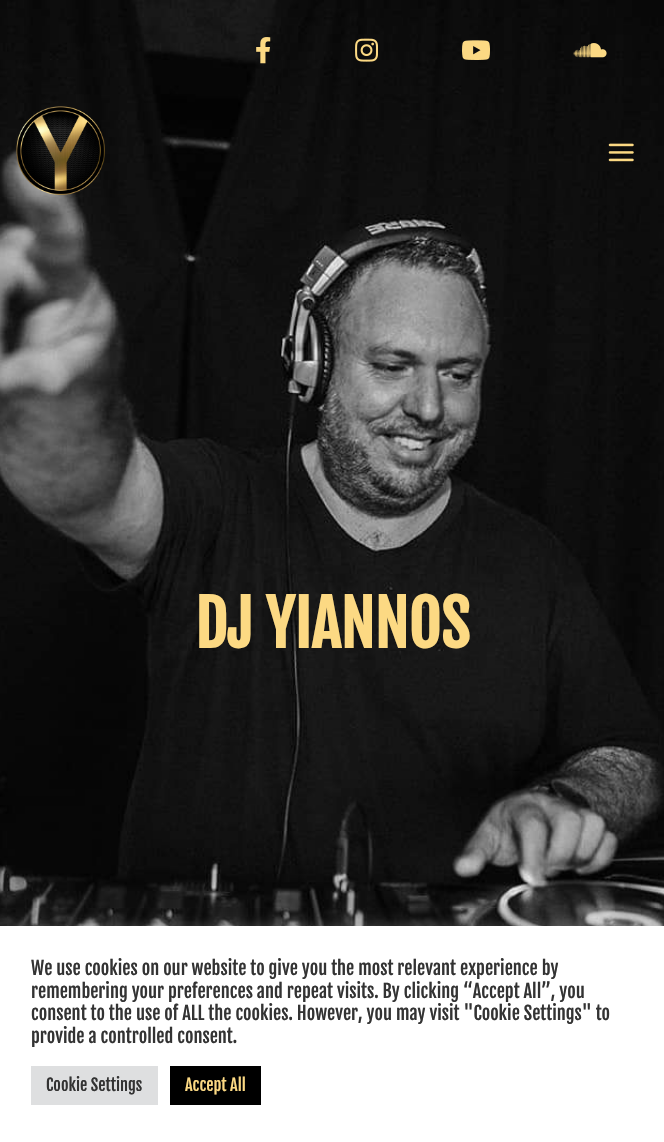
void draw(SkCanvas* canvas) {
    SkPaint paint;
    paint.setAntiAlias(true);
    auto face = [&](const char* family, int weight, float size, bool italic = false) {
        SkFontStyle style(weight, SkFontStyle::kNormal_Width,
            italic ? SkFontStyle::kItalic_Slant : SkFontStyle::kUpright_Slant);
        SkFont result(fontMgr->matchFamilyStyle(family, style), size);
        result.setSubpixel(true);
        return result;
    };
    auto write = [&](const char* s, float x, float y, const SkFont& font, SkColor color) {
        SkPaint ink(SkColor4f::FromColor(color));
        ink.setAntiAlias(true);
        canvas->drawString(s, x, y, font, ink);
    };
    auto block = [&](float x, float y, float w, float h, SkColor color) {
        SkPaint ink(SkColor4f::FromColor(color));
        ink.setAntiAlias(true);
        canvas->drawRect(SkRect::MakeXYWH(x, y, w, h), ink);
    };
    auto paste = [&](const char* path, float x, float y, float w, float h) {
        auto image = SkImages::DeferredFromEncodedData(SkData::MakeFromFileName(path));
        canvas->drawImageRect(image, SkRect::MakeXYWH(x, y, w, h), SkSamplingOptions());
    };
    canvas->clear(SK_ColorWHITE);
    paste("pic1.png", 0, 0, 664, 926);
    paste("pic2.png", 256, 37, 15, 27);
    paste("pic3.png", 355, 38, 23, 24);
    paste("pic4.png", 462, 40, 28, 20);
    paste("pic5.png", 573, 43, 34, 15);
    paste("pic6.png", 16, 106, 89, 89);
    paste("pic7.png", 608, 143, 26, 19);
    auto kFont1 = face("Fjalla One", 700, 62.5f);
    write("DJ YIANNOS", 195, 648, kFont1, SkColorSetRGB(252, 217, 131));
    paint.setColor(SkColorSetARGB(77, 172, 171, 171));
    paint.setMaskFilter(SkMaskFilter::MakeBlur(kNormal_SkBlurStyle, 6));
    canvas->drawRect(SkRect::MakeXYWH(0, 925, 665, 216), paint);
    paint.setMaskFilter(nullptr);
    block(0, 926, 664, 216, SK_ColorWHITE);
    auto kFont2 = face("Fjalla One", 400, 18.3f);
    write("We use cookies on our website to give you the most relevant experience by", 31, 975, kFont2, SkColorSetRGB(51, 51, 51));
    write("remembering your preferences and repeat visits. By clicking “Accept All”, you", 31, 998, kFont2, SkColorSetRGB(51, 51, 51));
    write("consent to the use of ALL the cookies. However, you may visit \"Cookie Settings\" to", 31, 1020, kFont2, SkColorSetRGB(51, 51, 51));
    write("provide a controlled consent.", 31, 1043, kFont2, SkColorSetRGB(51, 51, 51));
    block(31, 1066, 127, 39, SkColorSetRGB(222, 223, 224));
    auto kFont3 = face("Fjalla One", 400, 16.25f);
    write("Cookie Settings", 46, 1091, kFont3, SkColorSetRGB(51, 51, 51));
    block(170, 1066, 91, 39, SK_ColorBLACK);
    write("Accept All", 185, 1091, kFont3, SkColorSetRGB(252, 217, 131));
}
